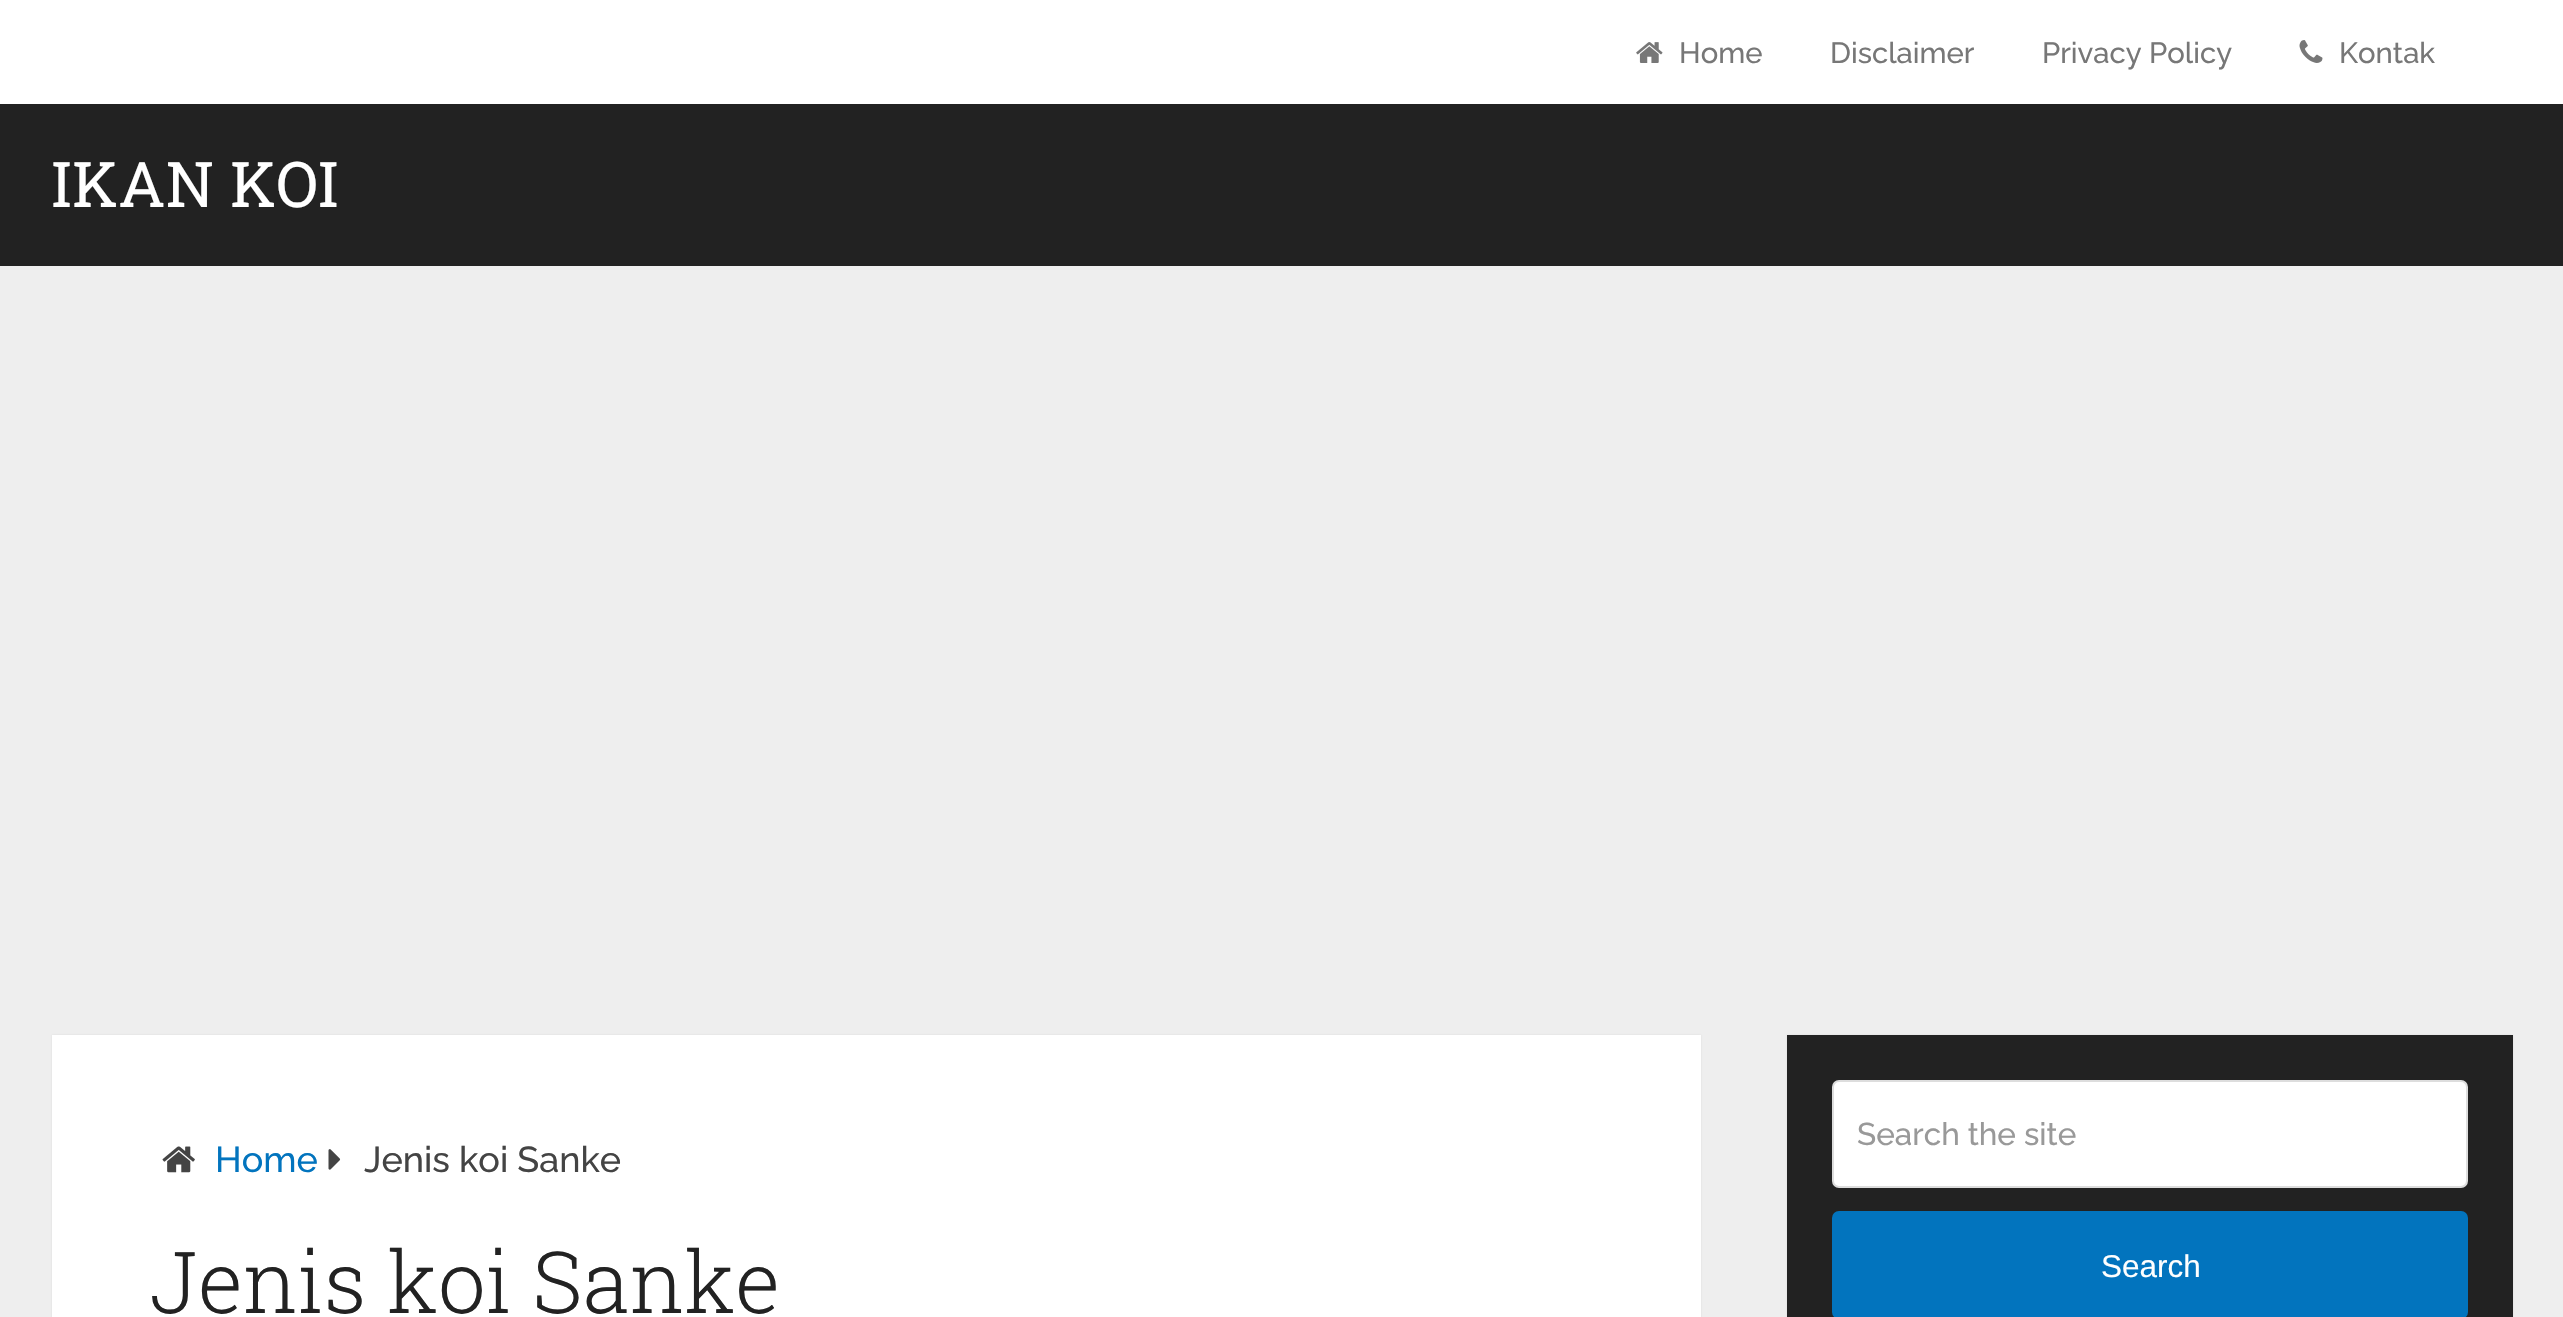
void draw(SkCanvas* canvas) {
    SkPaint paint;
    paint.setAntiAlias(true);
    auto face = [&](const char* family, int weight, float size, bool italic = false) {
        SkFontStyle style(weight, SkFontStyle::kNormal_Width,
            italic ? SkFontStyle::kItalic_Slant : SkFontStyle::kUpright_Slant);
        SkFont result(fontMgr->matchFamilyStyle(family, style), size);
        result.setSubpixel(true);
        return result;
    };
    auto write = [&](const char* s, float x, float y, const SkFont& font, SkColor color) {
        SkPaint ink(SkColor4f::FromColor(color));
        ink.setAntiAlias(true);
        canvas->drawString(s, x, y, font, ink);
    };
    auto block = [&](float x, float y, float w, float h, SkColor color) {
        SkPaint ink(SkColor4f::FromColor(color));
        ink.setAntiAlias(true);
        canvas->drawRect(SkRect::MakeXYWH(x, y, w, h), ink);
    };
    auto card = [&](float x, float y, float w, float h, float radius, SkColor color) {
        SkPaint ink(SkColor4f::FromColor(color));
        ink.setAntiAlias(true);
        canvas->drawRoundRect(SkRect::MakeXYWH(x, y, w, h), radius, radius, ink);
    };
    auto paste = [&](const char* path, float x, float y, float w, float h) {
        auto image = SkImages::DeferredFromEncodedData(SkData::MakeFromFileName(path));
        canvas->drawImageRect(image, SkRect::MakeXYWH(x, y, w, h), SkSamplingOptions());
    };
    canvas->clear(SkColorSetRGB(238, 238, 238));
    block(0, 0, 2563, 104, SK_ColorWHITE);
    paste("pic1.png", 1636, 42, 27, 21);
    auto kFont1 = face("Raleway", 500, 29.25f);
    write("Home", 1679, 63, kFont1, SkColorSetRGB(119, 119, 119));
    write("Disclaimer", 1830, 63, kFont1, SkColorSetRGB(119, 119, 119));
    write("Privacy Policy", 2042, 63, kFont1, SkColorSetRGB(119, 119, 119));
    paste("pic2.png", 2299, 40, 24, 23);
    write("Kontak", 2339, 63, kFont1, SkColorSetRGB(119, 119, 119));
    block(0, 104, 2563, 162, SkColorSetRGB(34, 34, 34));
    auto kFont2 = face("Roboto Slab", 400, 63);
    write("IKAN KOI", 51, 207, kFont2, SK_ColorWHITE);
    paint.setColor(SkColorSetARGB(26, 50, 50, 50));
    paint.setMaskFilter(SkMaskFilter::MakeBlur(kNormal_SkBlurStyle, 1));
    canvas->drawRect(SkRect::MakeXYWH(52, 1035, 1649, 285), paint);
    paint.setMaskFilter(nullptr);
    block(52, 1035, 1649, 282, SK_ColorWHITE);
    paste("pic3.png", 162, 1146, 33, 27);
    auto kFont3 = face("Raleway", 500, 36);
    write("Home", 215, 1172, kFont3, SkColorSetRGB(2, 116, 190));
    paste("pic4.png", 328, 1149, 13, 21);
    write("Jenis koi Sanke", 364, 1172, kFont3, SkColorSetRGB(68, 68, 68));
    auto kFont4 = face("Roboto Slab", 300, 85.5f);
    write("Jenis koi Sanke", 150, 1313, kFont4, SkColorSetRGB(34, 34, 34));
    paint.setMaskFilter(SkMaskFilter::MakeBlur(kNormal_SkBlurStyle, 1));
    canvas->drawRect(SkRect::MakeXYWH(1787, 1035, 726, 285), paint);
    paint.setMaskFilter(nullptr);
    block(1787, 1035, 726, 282, SkColorSetRGB(34, 34, 34));
    paint.setColor(SK_ColorWHITE);
    canvas->drawRoundRect(SkRect::MakeXYWH(1833, 1081, 634, 106), 6, 6, paint);
    paint.setStyle(SkPaint::kStroke_Style);
    paint.setStrokeWidth(2);
    paint.setColor(SkColorSetRGB(221, 221, 221));
    canvas->drawRoundRect(SkRect::MakeXYWH(1833, 1081, 634, 106), 6, 6, paint);
    auto kFont5 = face("Raleway", 500, 31.5f);
    write("Search the site", 1857, 1145, kFont5, SkColorSetRGB(153, 153, 153));
    card(1832, 1211, 636, 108, 7, SkColorSetRGB(2, 116, 190));
    auto kFont6 = face("Liberation Sans", 400, 31.5f);
    write("Search", 2101, 1277, kFont6, SK_ColorWHITE);
}
